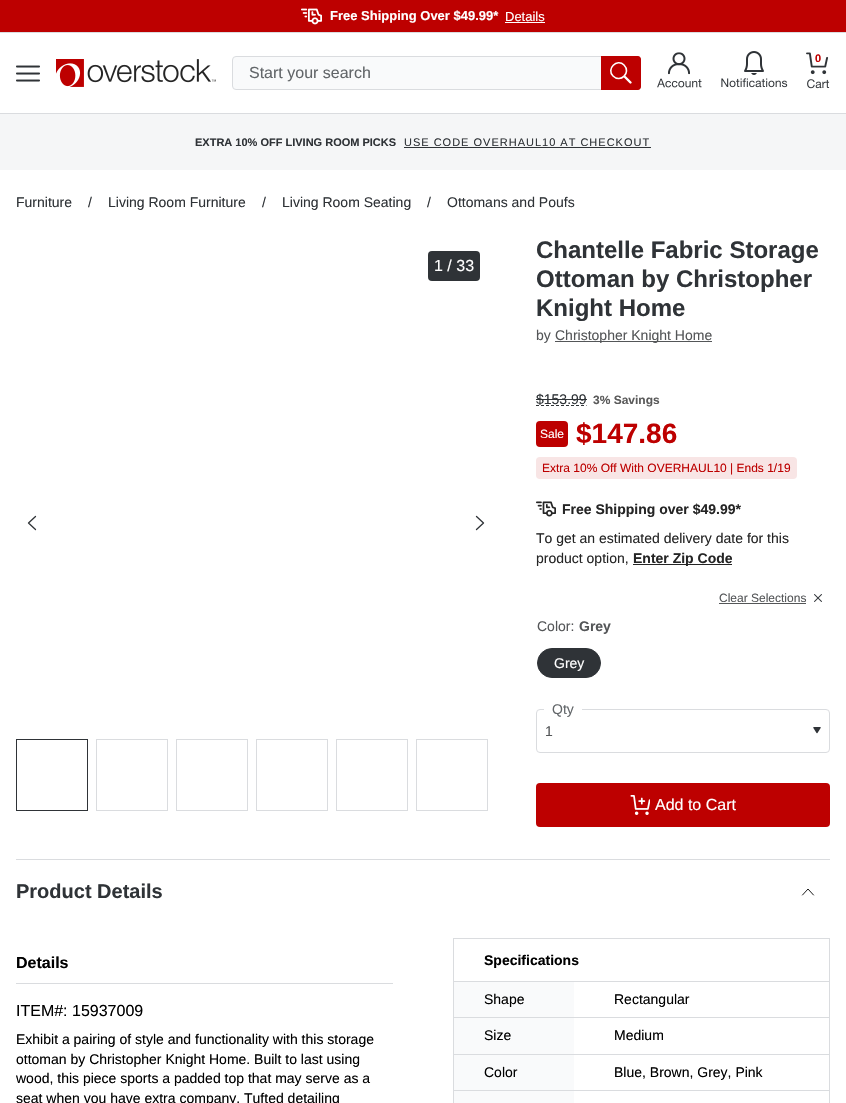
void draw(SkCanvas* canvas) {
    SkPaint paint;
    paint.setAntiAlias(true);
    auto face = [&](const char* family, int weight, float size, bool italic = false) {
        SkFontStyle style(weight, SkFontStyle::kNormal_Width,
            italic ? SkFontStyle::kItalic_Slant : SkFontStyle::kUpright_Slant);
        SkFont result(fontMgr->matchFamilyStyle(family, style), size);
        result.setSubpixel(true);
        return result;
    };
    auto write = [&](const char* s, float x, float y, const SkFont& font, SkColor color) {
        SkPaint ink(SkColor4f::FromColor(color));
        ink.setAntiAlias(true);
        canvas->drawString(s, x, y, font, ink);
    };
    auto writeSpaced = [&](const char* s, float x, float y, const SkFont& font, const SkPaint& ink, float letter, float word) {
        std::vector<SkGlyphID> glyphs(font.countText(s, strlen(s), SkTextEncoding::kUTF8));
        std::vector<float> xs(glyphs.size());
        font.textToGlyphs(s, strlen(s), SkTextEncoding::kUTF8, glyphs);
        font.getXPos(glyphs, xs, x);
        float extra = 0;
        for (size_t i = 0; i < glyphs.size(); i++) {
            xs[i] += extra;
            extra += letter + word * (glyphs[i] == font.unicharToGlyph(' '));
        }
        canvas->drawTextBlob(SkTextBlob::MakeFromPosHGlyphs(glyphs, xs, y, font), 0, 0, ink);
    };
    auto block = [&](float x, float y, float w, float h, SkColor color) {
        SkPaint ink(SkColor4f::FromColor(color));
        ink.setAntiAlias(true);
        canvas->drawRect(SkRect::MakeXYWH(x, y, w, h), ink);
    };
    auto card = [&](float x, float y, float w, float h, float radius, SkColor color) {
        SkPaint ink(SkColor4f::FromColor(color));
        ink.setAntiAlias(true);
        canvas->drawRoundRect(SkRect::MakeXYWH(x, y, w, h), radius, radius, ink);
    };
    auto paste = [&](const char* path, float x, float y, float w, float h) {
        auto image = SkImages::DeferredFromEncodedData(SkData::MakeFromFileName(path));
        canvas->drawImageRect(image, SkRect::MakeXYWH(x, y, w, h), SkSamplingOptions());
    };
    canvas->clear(SK_ColorWHITE);
    block(0, 0, 846, 32, SkColorSetRGB(189, 0, 0));
    paste("pic1.png", 301, 8, 21, 17);
    auto kFont1 = face("Liberation Sans", 700, 13);
    write("Free Shipping Over $49.99*", 330, 20, kFont1, SK_ColorWHITE);
    auto kFont2 = face("Liberation Sans", 400, 13);
    write("Details", 505, 21, kFont2, SK_ColorWHITE);
    block(505, 22, 40, 1, SK_ColorWHITE);
    block(0, 32, 846, 1, SkColorSetRGB(218, 220, 223));
    block(0, 113, 846, 1, SkColorSetRGB(218, 220, 223));
    paste("pic2.png", 16, 65, 24, 17);
    paste("pic3.png", 56, 59, 160, 28);
    paint.setColor(SkColorSetRGB(249, 250, 251));
    canvas->drawRoundRect(SkRect::MakeXYWH(232.5f, 56.5f, 408, 33), 3.5f, 3.5f, paint);
    paint.setStyle(SkPaint::kStroke_Style);
    paint.setStrokeWidth(1);
    paint.setColor(SkColorSetRGB(218, 220, 223));
    canvas->drawRoundRect(SkRect::MakeXYWH(232.5f, 56.5f, 408, 33), 3.5f, 3.5f, paint);
    auto kFont3 = face("Liberation Sans", 400, 16);
    write("Start your search", 249, 78, kFont3, SkColorSetRGB(98, 102, 105));
    paint.setStyle(SkPaint::kFill_Style);
    paint.setColor(SkColorSetRGB(189, 0, 0));
    canvas->drawPath(SkPathBuilder().moveTo(601, 56).lineTo(638, 56).cubicTo(639.5f, 56, 641, 57.5f, 641, 59).lineTo(641, 87).cubicTo(641, 88.5f, 639.5f, 90, 638, 90).lineTo(601, 90).close().detach(), paint);
    paint.setStyle(SkPaint::kStroke_Style);
    paint.setStrokeWidth(2.4f);
    paint.setStrokeCap(SkPaint::kRound_Cap);
    paint.setColor(SK_ColorWHITE);
    canvas->drawPath(SkPathBuilder().moveTo(630.5f, 82.5f).lineTo(625, 77).detach(), paint);
    paint.setStrokeWidth(1.6f);
    paint.setStrokeCap(SkPaint::kButt_Cap);
    canvas->drawPath(SkPathBuilder().moveTo(624, 65).cubicTo(631.5f, 72.5f, 620.5f, 83.5f, 613, 76).cubicTo(606, 69, 617, 58, 624, 65).close().detach(), paint);
    paste("pic4.png", 657, 52, 45, 36);
    paste("pic5.png", 721, 51, 67, 37);
    paste("pic6.png", 806, 52, 24, 37);
    auto kFont4 = face("Liberation Sans", 700, 11);
    write("0", 815, 62, kFont4, SkColorSetRGB(189, 0, 0));
    block(0, 114, 846, 56, SkColorSetRGB(245, 246, 247));
    write("EXTRA 10% OFF LIVING ROOM PICKS", 195, 146, kFont4, SkColorSetRGB(47, 51, 55));
    auto kFont5 = face("Liberation Sans", 400, 11);
    paint.setStyle(SkPaint::kFill_Style);
    paint.setColor(SkColorSetRGB(47, 51, 55));
    writeSpaced("USE CODE OVERHAUL10 AT CHECKOUT", 404, 146, kFont5, paint, 1, 0);
    block(404, 147, 247, 1, SkColorSetRGB(47, 51, 55));
    auto kFont6 = face("Liberation Sans", 400, 14);
    write("Furniture", 16, 207, kFont6, SkColorSetRGB(47, 51, 55));
    write("/", 88, 207, kFont6, SkColorSetRGB(47, 51, 55));
    write("Living Room Furniture", 108, 207, kFont6, SkColorSetRGB(47, 51, 55));
    write("/", 262, 207, kFont6, SkColorSetRGB(47, 51, 55));
    write("Living Room Seating", 282, 207, kFont6, SkColorSetRGB(47, 51, 55));
    write("/", 427, 207, kFont6, SkColorSetRGB(47, 51, 55));
    write("Ottomans and Poufs", 447, 207, kFont6, SkColorSetRGB(47, 51, 55));
    card(428, 251, 52, 30, 4, SkColorSetRGB(47, 51, 55));
    write("1 / 33", 434, 271, kFont3, SK_ColorWHITE);
    paint.setStyle(SkPaint::kStroke_Style);
    paint.setStrokeWidth(1.3f);
    paint.setStrokeCap(SkPaint::kRound_Cap);
    paint.setStrokeJoin(SkPaint::kRound_Join);
    canvas->drawPath(SkPathBuilder().moveTo(35.5f, 516.5f).lineTo(28.5f, 523).lineTo(35.5f, 529.5f).detach(), paint);
    canvas->drawPath(SkPathBuilder().moveTo(476.5f, 529.5f).lineTo(483.5f, 523).lineTo(476.5f, 516.5f).detach(), paint);
    paint.setStrokeWidth(1);
    paint.setStrokeCap(SkPaint::kButt_Cap);
    paint.setStrokeJoin(SkPaint::kMiter_Join);
    canvas->drawRect(SkRect::MakeXYWH(16.5f, 739.5f, 71, 71), paint);
    paint.setColor(SkColorSetRGB(218, 220, 223));
    canvas->drawRect(SkRect::MakeXYWH(96.5f, 739.5f, 71, 71), paint);
    canvas->drawRect(SkRect::MakeXYWH(176.5f, 739.5f, 71, 71), paint);
    canvas->drawRect(SkRect::MakeXYWH(256.5f, 739.5f, 71, 71), paint);
    canvas->drawRect(SkRect::MakeXYWH(336.5f, 739.5f, 71, 71), paint);
    canvas->drawRect(SkRect::MakeXYWH(416.5f, 739.5f, 71, 71), paint);
    auto kFont7 = face("Liberation Sans", 700, 24);
    write("Chantelle Fabric Storage", 536, 258, kFont7, SkColorSetRGB(47, 51, 55));
    write("Ottoman by Christopher", 536, 287, kFont7, SkColorSetRGB(47, 51, 55));
    write("Knight Home", 536, 316, kFont7, SkColorSetRGB(47, 51, 55));
    write("by", 536, 340, kFont6, SkColorSetRGB(84, 86, 88));
    block(555, 341, 157, 1, SkColorSetRGB(84, 86, 88));
    write("Christopher Knight Home", 555, 340, kFont6, SkColorSetRGB(84, 86, 88));
    write("$153.99", 536, 404, kFont6, SkColorSetRGB(47, 51, 55));
    paint.setColor(SkColorSetRGB(47, 51, 55));
    paint.setPathEffect(SkDashPathEffect::Make({{3, 2}}, 0));
    canvas->drawPath(SkPathBuilder().moveTo(536, 405.5f).lineTo(586.5f, 405.5f).detach(), paint);
    paint.setPathEffect(nullptr);
    block(536, 399, 51, 1, SkColorSetRGB(47, 51, 55));
    auto kFont8 = face("Liberation Sans", 700, 12);
    write("3% Savings", 593, 404, kFont8, SkColorSetRGB(90, 90, 90));
    card(536, 421, 32, 26, 4, SkColorSetRGB(189, 0, 0));
    auto kFont9 = face("Liberation Sans", 400, 12);
    write("Sale", 540, 438, kFont9, SK_ColorWHITE);
    auto kFont10 = face("Liberation Sans", 700, 28);
    write("$147.86", 576, 443, kFont10, SkColorSetRGB(189, 0, 0));
    card(536, 457, 261, 22, 4, SkColorSetRGB(248, 229, 229));
    write("Extra 10% Off With OVERHAUL10 | Ends 1/19", 542, 472, kFont9, SkColorSetRGB(189, 0, 0));
    paste("pic7.png", 536, 501, 20, 16);
    auto kFont11 = face("Liberation Sans", 700, 14);
    write("Free Shipping over $49.99*", 562, 514, kFont11, SkColorSetRGB(37, 37, 37));
    write("To get an estimated delivery date for this", 536, 543, kFont6, SkColorSetRGB(37, 37, 37));
    write("product option,", 536, 563, kFont6, SkColorSetRGB(37, 37, 37));
    block(633, 564, 99, 1, SkColorSetRGB(37, 37, 37));
    write("Enter Zip Code", 633, 563, kFont11, SkColorSetRGB(37, 37, 37));
    write("Clear Selections", 719, 602, kFont9, SkColorSetRGB(84, 86, 88));
    block(719, 603, 87, 1, SkColorSetRGB(84, 86, 88));
    paste("pic8.png", 814, 594, 8, 8);
    write("Color:", 537, 631, kFont6, SkColorSetRGB(84, 86, 88));
    write("Grey", 579, 631, kFont11, SkColorSetRGB(84, 86, 88));
    paint.setStyle(SkPaint::kFill_Style);
    canvas->drawRoundRect(SkRect::MakeXYWH(537.5f, 648.5f, 63, 29), 14.5f, 14.5f, paint);
    paint.setStyle(SkPaint::kStroke_Style);
    canvas->drawRoundRect(SkRect::MakeXYWH(537.5f, 648.5f, 63, 29), 14.5f, 14.5f, paint);
    write("Grey", 554, 668, kFont6, SK_ColorWHITE);
    paste("pic9.png", 813, 727, 8, 7);
    paint.setColor(SkColorSetRGB(218, 220, 223));
    canvas->drawRoundRect(SkRect::MakeXYWH(536.5f, 709.5f, 293, 43), 3.5f, 3.5f, paint);
    block(544, 709, 38, 1, SK_ColorWHITE);
    write("Qty", 552, 714, kFont6, SkColorSetRGB(98, 102, 105));
    write("1", 545, 736, kFont6, SkColorSetRGB(84, 86, 88));
    card(536, 783, 294, 44, 4, SkColorSetRGB(189, 0, 0));
    paste("pic10.png", 630, 795, 20, 20);
    write("Add to Cart", 655, 810, kFont3, SK_ColorWHITE);
    block(16, 859, 814, 1, SkColorSetRGB(218, 220, 223));
    auto kFont12 = face("Liberation Sans", 700, 20);
    write("Product Details", 16, 898, kFont12, SkColorSetRGB(47, 51, 55));
    paint.setStrokeWidth(0.9f);
    paint.setStrokeCap(SkPaint::kRound_Cap);
    paint.setColor(SK_ColorBLACK);
    canvas->drawPath(SkPathBuilder().moveTo(802.5f, 895).lineTo(808, 889).lineTo(813.5f, 895).detach(), paint);
    block(16, 983, 377, 1, SkColorSetRGB(218, 220, 223));
    auto kFont13 = face("Liberation Sans", 700, 16);
    write("Details", 16, 968, kFont13, SK_ColorBLACK);
    write("ITEM#: 15937009", 16, 1016, kFont3, SK_ColorBLACK);
    write("Exhibit a pairing of style and functionality with this storage", 16, 1044, kFont6, SK_ColorBLACK);
    write("ottoman by Christopher Knight Home. Built to last using", 16, 1064, kFont6, SK_ColorBLACK);
    write("wood, this piece sports a padded top that may serve as a", 16, 1083, kFont6, SK_ColorBLACK);
    write("seat when you have extra company. Tufted detailing", 16, 1103, kFont6, SK_ColorBLACK);
    paint.setStrokeWidth(1);
    paint.setStrokeCap(SkPaint::kButt_Cap);
    paint.setColor(SkColorSetRGB(218, 220, 223));
    canvas->drawRect(SkRect::MakeXYWH(453.5f, 938.5f, 376, 43), paint);
    write("Specifications", 484, 965, kFont11, SK_ColorBLACK);
    block(829, 982, 1, 121, SkColorSetRGB(218, 220, 223));
    block(453, 1017, 377, 1, SkColorSetRGB(218, 220, 223));
    block(453, 982, 1, 36, SkColorSetRGB(218, 220, 223));
    block(454, 982, 120, 35, SkColorSetRGB(249, 250, 251));
    write("Shape", 484, 1004, kFont6, SK_ColorBLACK);
    write("Rectangular", 614, 1004, kFont6, SK_ColorBLACK);
    block(453, 1054, 377, 1, SkColorSetRGB(218, 220, 223));
    block(453, 1018, 1, 37, SkColorSetRGB(218, 220, 223));
    block(454, 1018, 120, 36, SkColorSetRGB(249, 250, 251));
    write("Size", 484, 1040, kFont6, SK_ColorBLACK);
    write("Medium", 614, 1040, kFont6, SK_ColorBLACK);
    block(453, 1090, 377, 1, SkColorSetRGB(218, 220, 223));
    block(453, 1055, 1, 48, SkColorSetRGB(218, 220, 223));
    block(454, 1055, 120, 35, SkColorSetRGB(249, 250, 251));
    write("Color", 484, 1077, kFont6, SK_ColorBLACK);
    write("Blue, Brown, Grey, Pink", 614, 1077, kFont6, SK_ColorBLACK);
    block(454, 1091, 120, 12, SkColorSetRGB(249, 250, 251));
}
